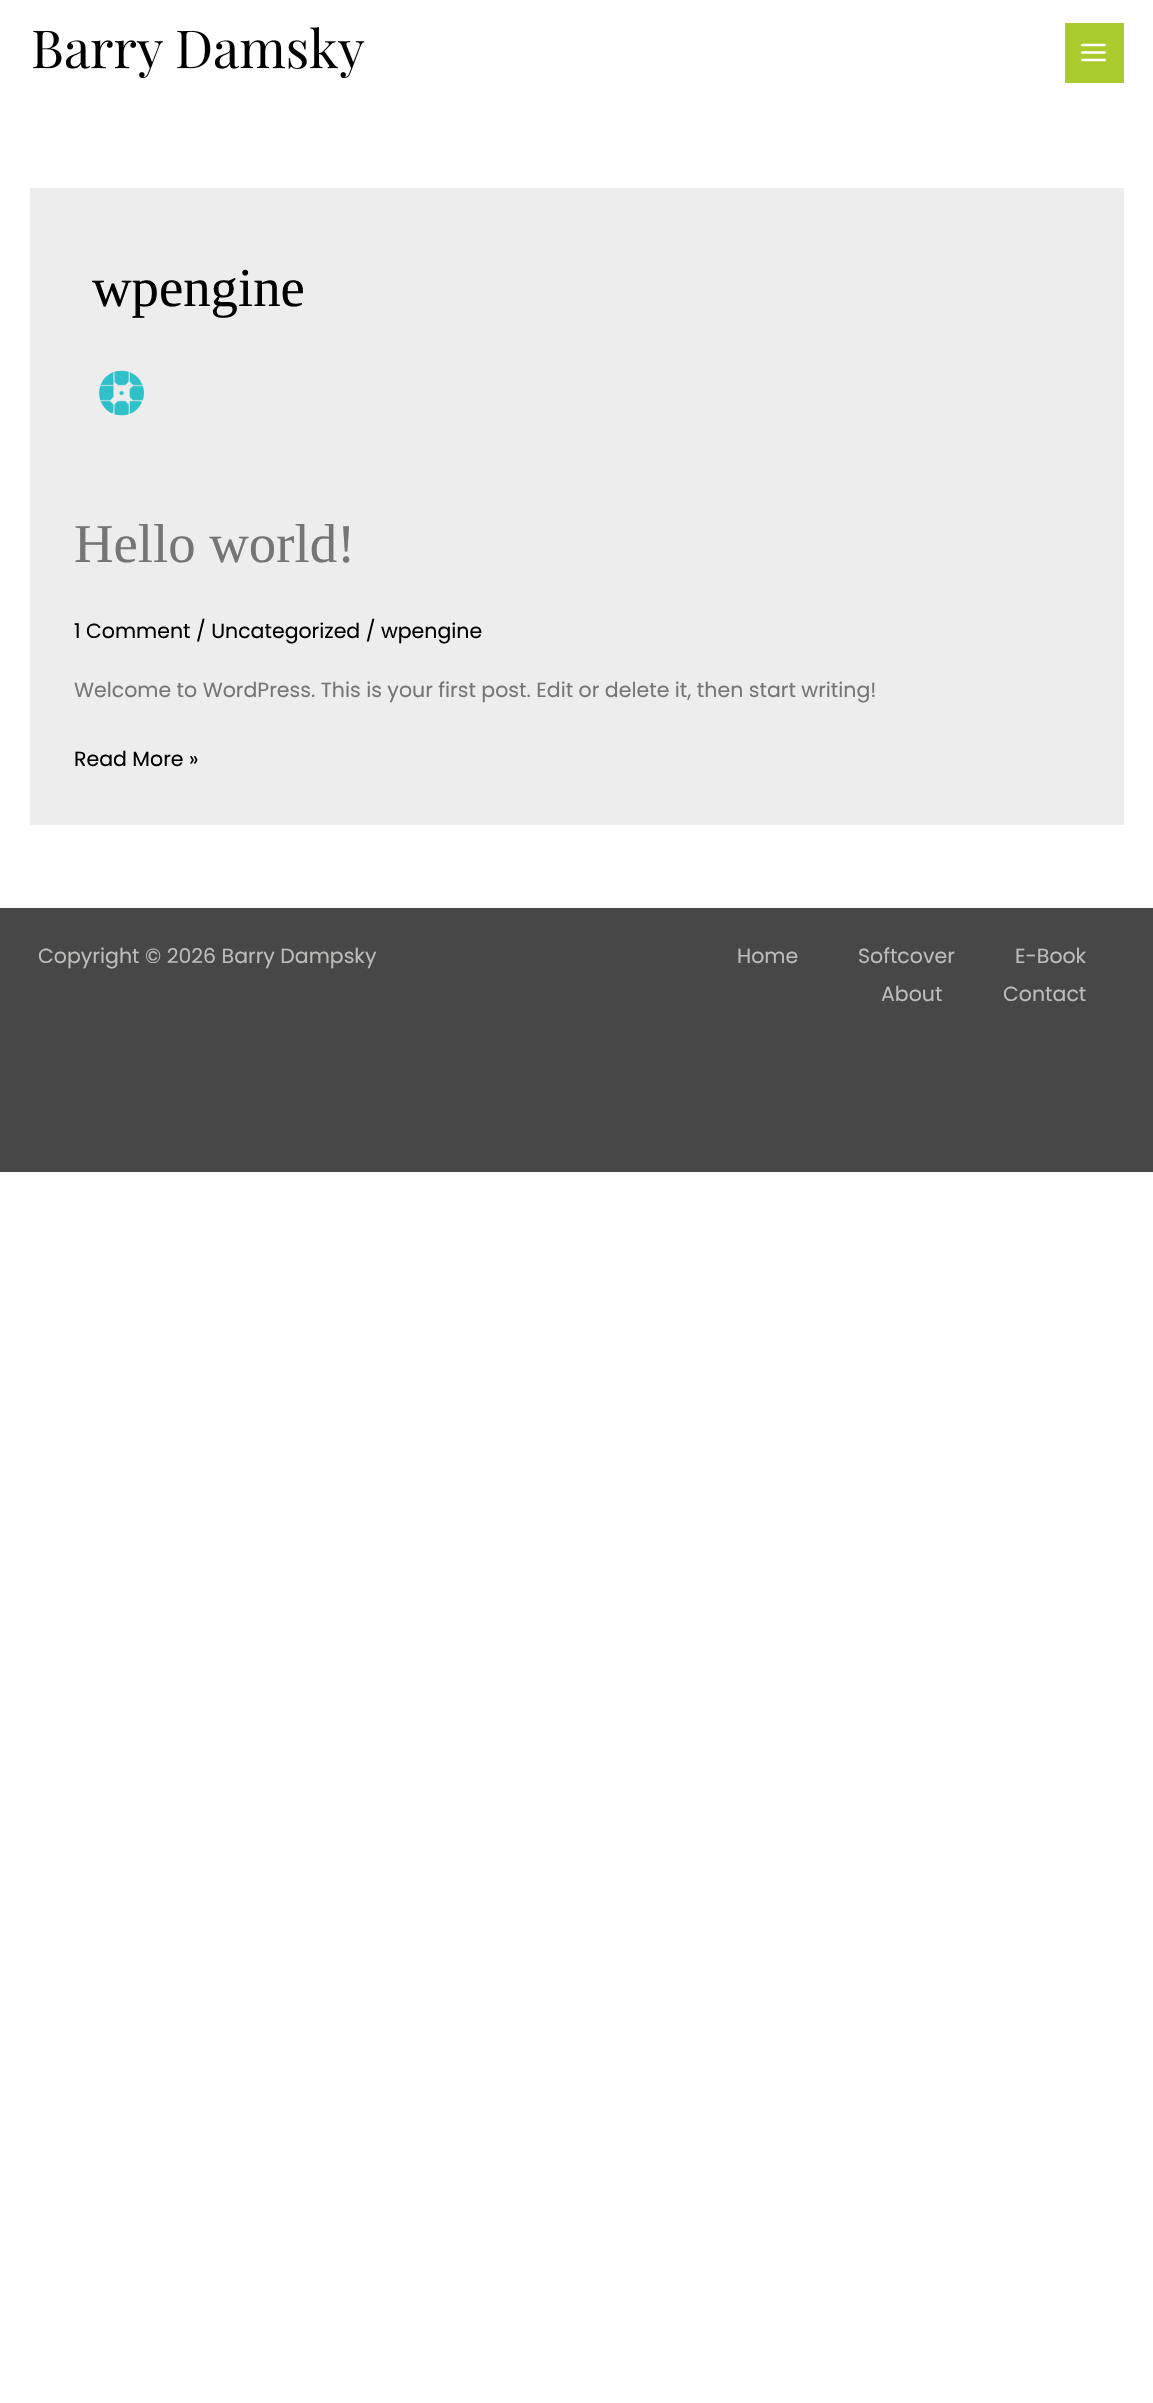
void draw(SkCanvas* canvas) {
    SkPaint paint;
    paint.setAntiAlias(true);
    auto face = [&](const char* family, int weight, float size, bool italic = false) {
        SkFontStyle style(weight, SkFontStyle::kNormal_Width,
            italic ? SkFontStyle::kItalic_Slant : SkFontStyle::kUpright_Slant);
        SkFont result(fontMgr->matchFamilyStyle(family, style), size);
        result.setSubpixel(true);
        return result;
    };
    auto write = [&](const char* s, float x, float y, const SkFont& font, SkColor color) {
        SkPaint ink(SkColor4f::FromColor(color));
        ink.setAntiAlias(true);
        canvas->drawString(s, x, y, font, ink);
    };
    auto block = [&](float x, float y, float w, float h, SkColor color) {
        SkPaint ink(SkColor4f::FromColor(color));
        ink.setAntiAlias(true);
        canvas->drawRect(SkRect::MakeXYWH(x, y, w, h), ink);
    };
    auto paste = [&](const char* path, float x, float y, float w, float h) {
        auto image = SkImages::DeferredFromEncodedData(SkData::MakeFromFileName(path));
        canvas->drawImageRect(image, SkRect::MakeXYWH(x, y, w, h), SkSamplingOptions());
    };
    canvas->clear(SK_ColorWHITE);
    paste("pic1.png", 33, 27, 332, 52);
    block(1065, 23, 59, 60, SkColorSetRGB(169, 203, 43));
    paste("pic2.png", 1081, 43, 25, 19);
    block(30, 188, 1094, 637, SkColorSetRGB(237, 237, 237));
    auto kFont1 = face("Liberation Serif", 400, 54.75f);
    write("wpengine", 92, 306, kFont1, SK_ColorBLACK);
    paste("pic3.png", 99, 370, 45, 46);
    write("Hello world!", 74, 562, kFont1, SkColorSetRGB(117, 117, 117));
    auto kFont2 = face("Poppins", 400, 20.5f);
    write("1 Comment / Uncategorized / wpengine", 74, 638, kFont2, SK_ColorBLACK);
    write("Welcome to WordPress. This is your first post. Edit or delete it, then start writing!", 74, 697, kFont2, SkColorSetRGB(117, 117, 117));
    write("Read More »", 74, 766, kFont2, SK_ColorBLACK);
    block(0, 908, 1153, 264, SkColorSetRGB(71, 71, 71));
    write("Copyright © 2026 Barry Dampsky", 38, 963, kFont2, SkColorSetRGB(188, 189, 186));
    write("Home", 737, 963, kFont2, SkColorSetRGB(188, 189, 186));
    write("Softcover", 858, 963, kFont2, SkColorSetRGB(188, 189, 186));
    write("E-Book", 1015, 963, kFont2, SkColorSetRGB(188, 189, 186));
    write("About", 881, 1001, kFont2, SkColorSetRGB(188, 189, 186));
    write("Contact", 1003, 1001, kFont2, SkColorSetRGB(188, 189, 186));
}
